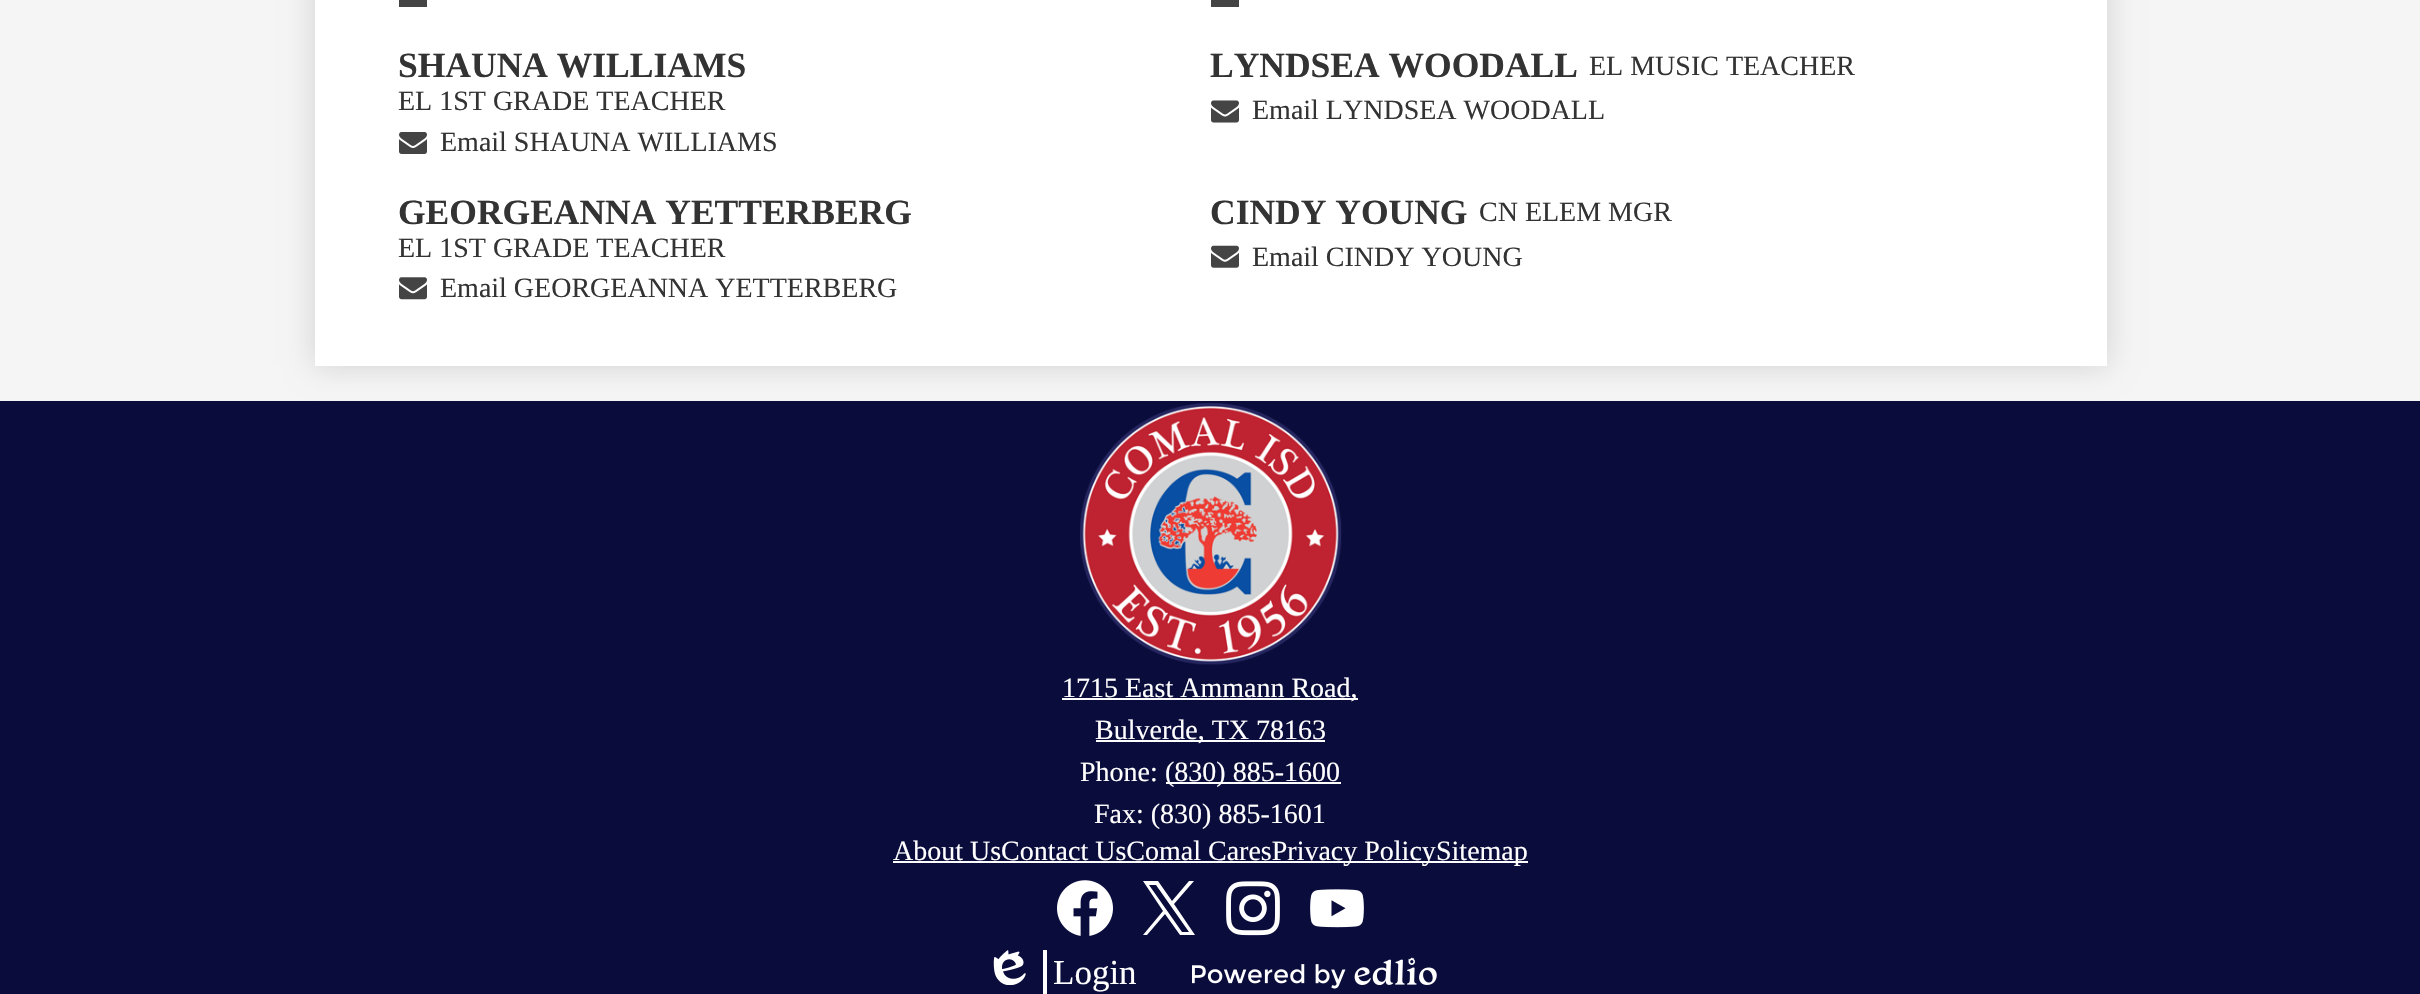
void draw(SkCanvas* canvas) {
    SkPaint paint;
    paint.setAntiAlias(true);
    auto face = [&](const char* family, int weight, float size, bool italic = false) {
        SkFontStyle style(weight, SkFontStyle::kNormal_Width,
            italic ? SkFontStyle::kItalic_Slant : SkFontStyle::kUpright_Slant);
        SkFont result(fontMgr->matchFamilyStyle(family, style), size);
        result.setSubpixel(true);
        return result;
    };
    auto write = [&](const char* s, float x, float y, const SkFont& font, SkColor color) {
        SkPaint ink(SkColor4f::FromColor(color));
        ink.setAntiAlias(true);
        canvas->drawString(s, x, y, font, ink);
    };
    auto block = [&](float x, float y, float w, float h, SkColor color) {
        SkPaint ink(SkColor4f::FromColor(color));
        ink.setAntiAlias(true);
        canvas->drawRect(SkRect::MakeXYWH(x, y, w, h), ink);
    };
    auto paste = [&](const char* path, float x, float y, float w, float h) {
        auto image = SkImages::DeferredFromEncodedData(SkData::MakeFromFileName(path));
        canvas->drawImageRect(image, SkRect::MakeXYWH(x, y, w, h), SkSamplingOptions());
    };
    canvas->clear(SkColorSetRGB(245, 245, 245));
    block(0, 401, 2420, 593, SkColorSetRGB(10, 12, 60));
    paste("pic5.png", 1080, 403, 262, 262);
    paint.setColor(SkColorSetARGB(38, 0, 0, 0));
    paint.setMaskFilter(SkMaskFilter::MakeBlur(kNormal_SkBlurStyle, 14));
    canvas->drawRect(SkRect::MakeXYWH(315, -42, 1792, 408), paint);
    paint.setMaskFilter(nullptr);
    block(315, 0, 1792, 366, SK_ColorWHITE);
    block(399, 0, 28, 7, SkColorSetRGB(68, 68, 68));
    block(1211, 0, 28, 7, SkColorSetRGB(68, 68, 68));
    auto kFont1 = face("Liberation Serif", 700, 35.5f);
    write("SHAUNA WILLIAMS", 398, 77, kFont1, SkColorSetRGB(51, 51, 51));
    auto kFont2 = face("Liberation Serif", 400, 28);
    write("EL 1ST GRADE TEACHER", 398, 110, kFont2, SkColorSetRGB(51, 51, 51));
    paste("pic1.png", 399, 132, 28, 22);
    write("Email SHAUNA WILLIAMS", 440, 151, kFont2, SkColorSetRGB(51, 51, 51));
    write("LYNDSEA WOODALL", 1210, 77, kFont1, SkColorSetRGB(51, 51, 51));
    write("EL MUSIC TEACHER", 1589, 75, kFont2, SkColorSetRGB(51, 51, 51));
    paste("pic2.png", 1211, 100, 28, 23);
    write("Email LYNDSEA WOODALL", 1252, 119, kFont2, SkColorSetRGB(51, 51, 51));
    write("GEORGEANNA YETTERBERG", 398, 224, kFont1, SkColorSetRGB(51, 51, 51));
    write("EL 1ST GRADE TEACHER", 398, 257, kFont2, SkColorSetRGB(51, 51, 51));
    paste("pic3.png", 399, 277, 28, 23);
    write("Email GEORGEANNA YETTERBERG", 440, 297, kFont2, SkColorSetRGB(51, 51, 51));
    write("CINDY YOUNG", 1210, 224, kFont1, SkColorSetRGB(51, 51, 51));
    write("CN ELEM MGR", 1479, 221, kFont2, SkColorSetRGB(51, 51, 51));
    paste("pic4.png", 1211, 245, 28, 23);
    write("Email CINDY YOUNG", 1252, 266, kFont2, SkColorSetRGB(51, 51, 51));
    block(1062, 698, 296, 2, SK_ColorWHITE);
    write("1715 East Ammann Road,", 1062, 697, kFont2, SK_ColorWHITE);
    block(1096, 740, 229, 2, SK_ColorWHITE);
    write("Bulverde, TX 78163", 1095, 739, kFont2, SK_ColorWHITE);
    write("Phone:", 1080, 781, kFont2, SK_ColorWHITE);
    block(1166, 782, 175, 2, SK_ColorWHITE);
    write("(830) 885-1600", 1165, 781, kFont2, SK_ColorWHITE);
    write("Fax: (830) 885-1601", 1094, 823, kFont2, SK_ColorWHITE);
    block(893, 861, 542, 2, SK_ColorWHITE);
    write("About UsContact UsComal CaresPrivacy Policy", 893, 860, kFont2, SK_ColorWHITE);
    block(1435, 861, 93, 2, SK_ColorWHITE);
    write("Sitemap", 1436, 860, kFont2, SK_ColorWHITE);
    paste("pic6.png", 1057, 880, 56, 56);
    paint.setColor(SK_ColorWHITE);
    canvas->drawPath(SkPathBuilder().moveTo(1174, 904).lineTo(1194, 881).lineTo(1189, 881).lineTo(1172, 901).lineTo(1158, 881).lineTo(1143, 881).lineTo(1163, 911).lineTo(1143, 935).lineTo(1147, 935).lineTo(1165, 914).lineTo(1180, 935).lineTo(1195, 935).close().moveTo(1168, 912).lineTo(1149, 885).lineTo(1156, 885).lineTo(1189, 932).lineTo(1182, 932).close().detach(), paint);
    paste("pic7.png", 1226, 881, 54, 55);
    paste("pic8.png", 1310, 889, 54, 39);
    block(1043, 950, 4, 44, SK_ColorWHITE);
    paste("pic9.png", 993, 950, 33, 35);
    auto kFont3 = face("Liberation Serif", 400, 35);
    write("Login", 1053, 984, kFont3, SK_ColorWHITE);
    paste("pic10.png", 1192, 957, 245, 32);
}
